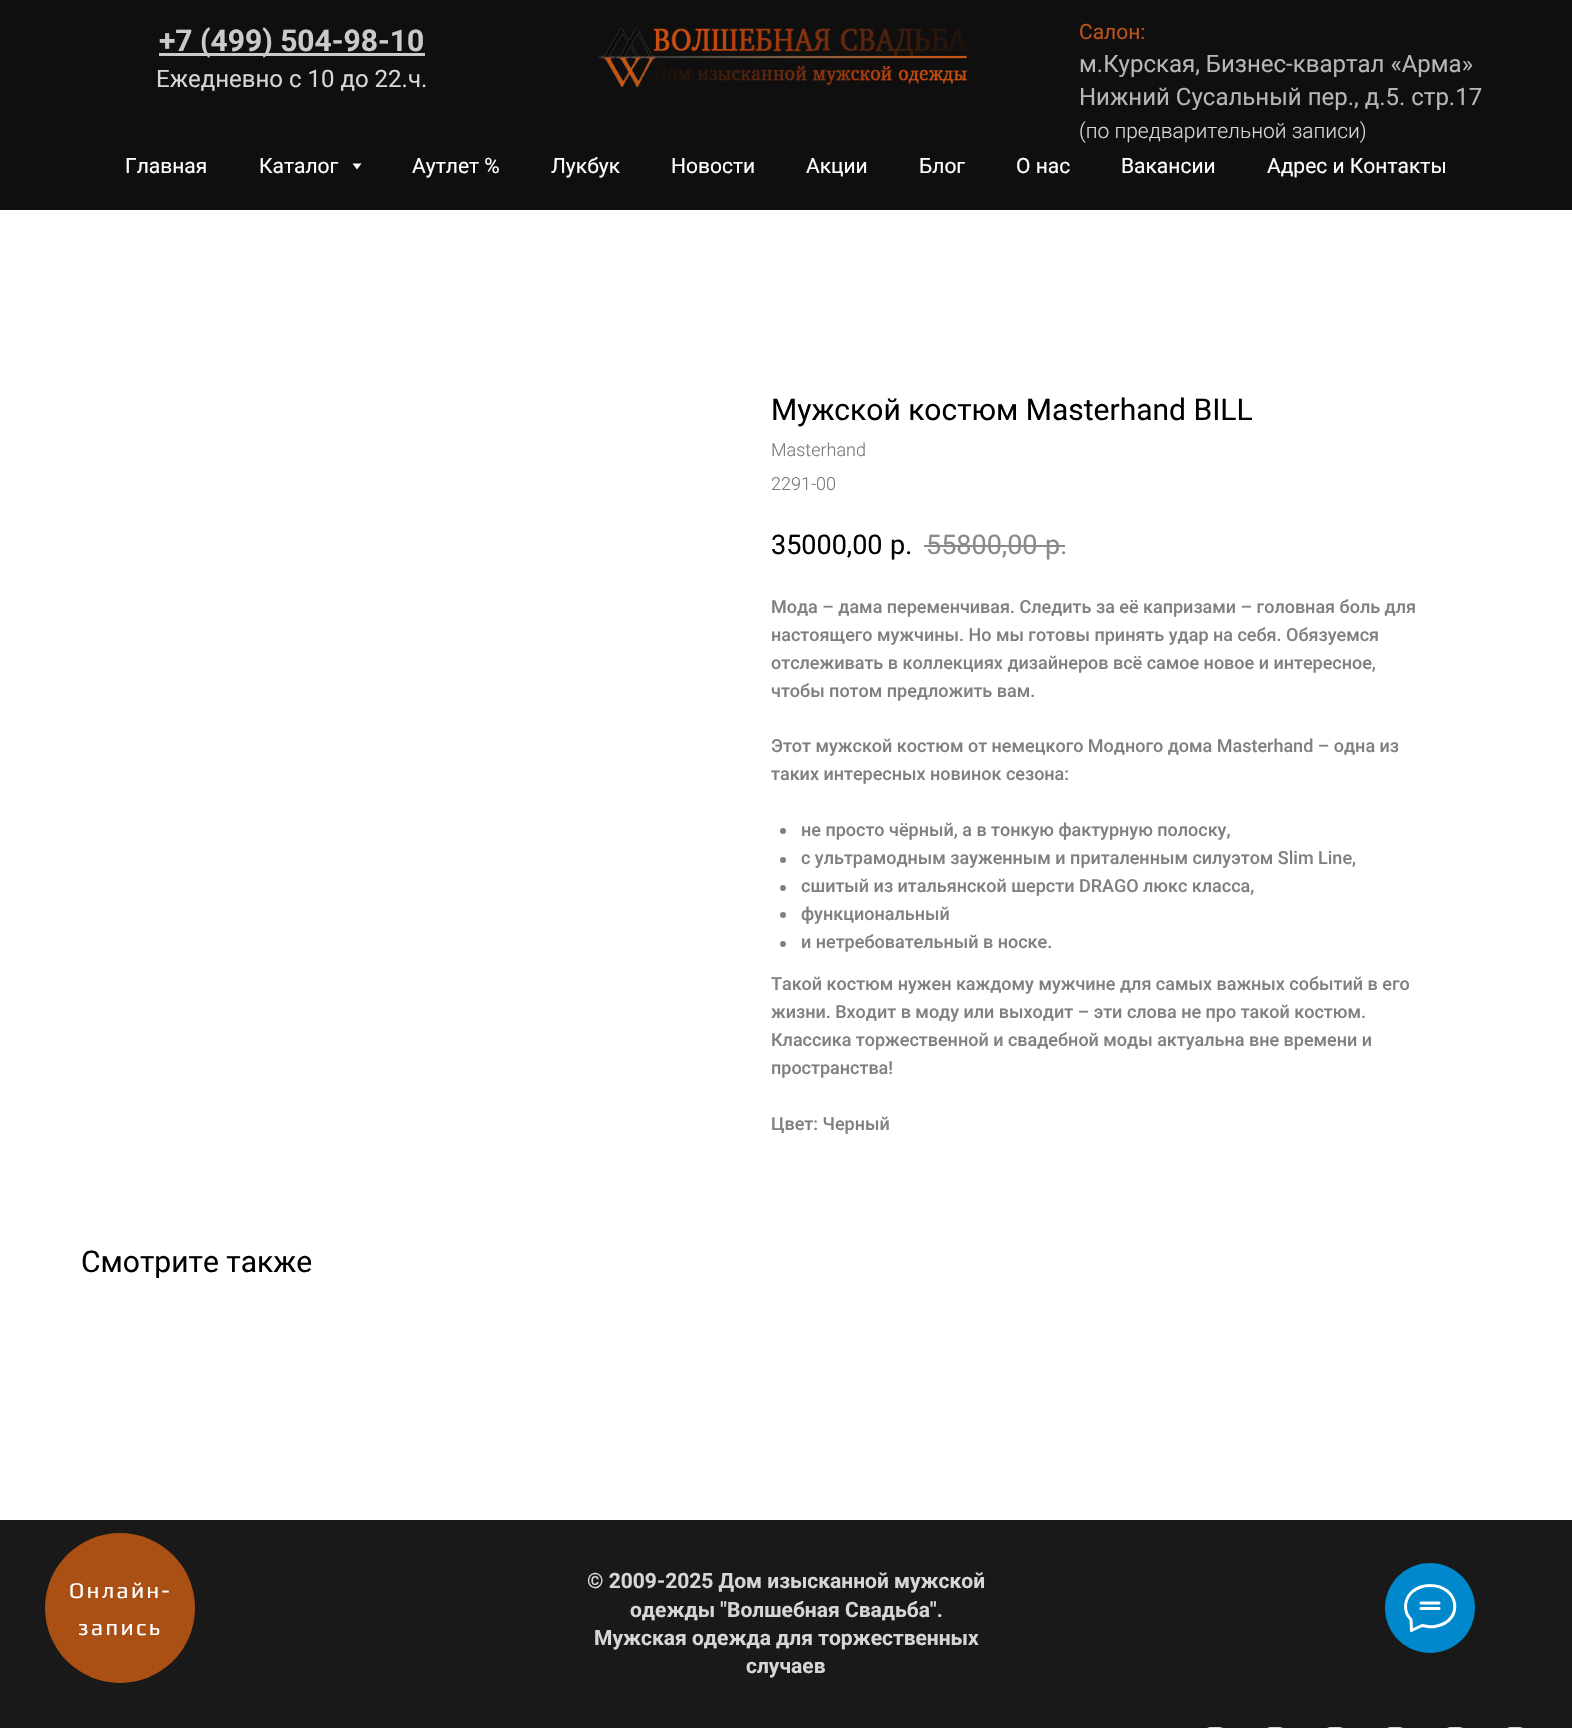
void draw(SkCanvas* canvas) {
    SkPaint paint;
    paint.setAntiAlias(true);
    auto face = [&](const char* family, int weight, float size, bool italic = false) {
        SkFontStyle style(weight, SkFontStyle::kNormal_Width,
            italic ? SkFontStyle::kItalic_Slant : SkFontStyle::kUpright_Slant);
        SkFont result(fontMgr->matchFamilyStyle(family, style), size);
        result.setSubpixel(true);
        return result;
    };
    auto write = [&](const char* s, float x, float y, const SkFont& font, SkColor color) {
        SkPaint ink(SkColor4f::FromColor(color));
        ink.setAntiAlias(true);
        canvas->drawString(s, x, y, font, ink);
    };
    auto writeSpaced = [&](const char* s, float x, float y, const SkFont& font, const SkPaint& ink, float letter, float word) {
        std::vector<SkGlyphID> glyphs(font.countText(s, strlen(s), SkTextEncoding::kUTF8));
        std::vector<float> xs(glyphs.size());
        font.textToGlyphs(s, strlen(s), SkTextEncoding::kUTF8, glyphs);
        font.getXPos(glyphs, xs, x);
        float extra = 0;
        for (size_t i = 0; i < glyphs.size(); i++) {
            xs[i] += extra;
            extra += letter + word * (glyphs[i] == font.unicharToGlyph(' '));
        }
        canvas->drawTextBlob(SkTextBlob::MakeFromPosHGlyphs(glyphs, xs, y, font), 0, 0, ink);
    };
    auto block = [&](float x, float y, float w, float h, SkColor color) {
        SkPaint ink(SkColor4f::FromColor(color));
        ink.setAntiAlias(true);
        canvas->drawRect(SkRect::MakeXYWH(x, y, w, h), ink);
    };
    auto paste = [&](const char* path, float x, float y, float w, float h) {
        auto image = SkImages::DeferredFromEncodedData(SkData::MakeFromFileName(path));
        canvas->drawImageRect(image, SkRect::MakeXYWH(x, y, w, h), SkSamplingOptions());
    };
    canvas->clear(SK_ColorWHITE);
    block(0, 0, 1572, 210, SkColorSetRGB(16, 15, 15));
    block(159, 53, 266, 3, SkColorSetRGB(203, 201, 201));
    auto kFont1 = face("Roboto", 700, 30);
    write("+7 (499) 504-98-10", 159, 51, kFont1, SkColorSetRGB(203, 201, 201));
    auto kFont2 = face("Roboto", 400, 24);
    write("Ежедневно с 10 до 22.ч.", 156, 87, kFont2, SkColorSetRGB(214, 214, 214));
    auto kFont3 = face("Roboto", 400, 21);
    write("Салон:", 1079, 39, kFont3, SkColorSetRGB(189, 83, 24));
    write("м.Курская, Бизнес-квартал «Арма»", 1079, 72, kFont2, SkColorSetRGB(185, 181, 181));
    write("Нижний Сусальный пер., д.5. стр.17", 1079, 105, kFont2, SkColorSetRGB(185, 181, 181));
    auto kFont4 = face("Roboto", 300, 21);
    write("(по предварительной записи)", 1079, 138, kFont4, SkColorSetRGB(214, 214, 214));
    paste("pic1.png", 598, 27, 370, 60);
    write("Главная", 125, 173, kFont3, SK_ColorWHITE);
    write("Каталог", 259, 173, kFont3, SK_ColorWHITE);
    paint.setColor(SK_ColorWHITE);
    canvas->drawPath(SkPathBuilder().moveTo(352.5f, 163.5f).lineTo(361.5f, 163.5f).lineTo(357, 169.5f).close().detach(), paint);
    write("Аутлет %", 412, 173, kFont3, SK_ColorWHITE);
    write("Лукбук", 551, 173, kFont3, SK_ColorWHITE);
    write("Новости", 671, 173, kFont3, SK_ColorWHITE);
    write("Акции", 806, 173, kFont3, SK_ColorWHITE);
    write("Блог", 919, 173, kFont3, SK_ColorWHITE);
    write("О нас", 1016, 173, kFont3, SK_ColorWHITE);
    write("Вакансии", 1121, 173, kFont3, SK_ColorWHITE);
    write("Адрес и Контакты", 1267, 173, kFont3, SK_ColorWHITE);
    block(0, 1520, 1572, 208, SkColorSetRGB(26, 25, 25));
    paint.setColor(SkColorSetRGB(0, 136, 204));
    canvas->drawCircle(1430, 1608, 45, paint);
    paint.setStyle(SkPaint::kStroke_Style);
    paint.setStrokeWidth(3);
    paint.setStrokeCap(SkPaint::kRound_Cap);
    paint.setStrokeJoin(SkPaint::kRound_Join);
    paint.setColor(SK_ColorWHITE);
    canvas->drawPath(SkPathBuilder().moveTo(1421, 1603).lineTo(1439, 1603).moveTo(1421, 1608.5f).lineTo(1439, 1608.5f).moveTo(1411, 1619.5f).cubicTo(1403, 1611.5f, 1404, 1599, 1412.5f, 1591.5f).cubicTo(1417.5f, 1587.5f, 1424, 1585.5f, 1430, 1585.5f).cubicTo(1459.5f, 1585.5f, 1464.5f, 1621.5f, 1435, 1626.5f).cubicTo(1430, 1627.5f, 1427, 1626, 1422, 1625.5f).lineTo(1411.5f, 1630.5f).close().detach(), paint);
    auto kFont5 = face("Roboto", 400, 30);
    write("Мужской костюм Masterhand BILL", 771, 420, kFont5, SK_ColorBLACK);
    auto kFont6 = face("Roboto", 300, 18);
    write("Masterhand", 771, 456, kFont6, SkColorSetRGB(119, 119, 119));
    write("2291-00", 771, 490, kFont6, SkColorSetRGB(119, 119, 119));
    auto kFont7 = face("Roboto", 400, 27);
    write("35000,00", 771, 554, kFont7, SK_ColorBLACK);
    write("р.", 890, 554, kFont7, SK_ColorBLACK);
    write("55800,00", 926, 554, kFont7, SkColorSetRGB(138, 138, 138));
    write("р.", 1045, 554, kFont7, SkColorSetRGB(138, 138, 138));
    block(924, 545, 141, 2, SkColorSetRGB(138, 138, 138));
    auto kFont8 = face("Roboto", 500, 18);
    write("Мода – дама переменчивая. Следить за её капризами – головная боль для", 771, 613, kFont8, SkColorSetRGB(128, 128, 128));
    write("настоящего мужчины. Но мы готовы принять удар на себя. Обязуемся", 771, 641, kFont8, SkColorSetRGB(128, 128, 128));
    write("отслеживать в коллекциях дизайнеров всё самое новое и интересное,", 771, 669, kFont8, SkColorSetRGB(128, 128, 128));
    write("чтобы потом предложить вам.", 771, 697, kFont8, SkColorSetRGB(128, 128, 128));
    write("Этот мужской костюм от немецкого Модного дома Masterhand – одна из", 771, 752, kFont8, SkColorSetRGB(128, 128, 128));
    write("таких интересных новинок сезона:", 771, 780, kFont8, SkColorSetRGB(128, 128, 128));
    paint.setStyle(SkPaint::kFill_Style);
    paint.setColor(SkColorSetRGB(128, 128, 128));
    canvas->drawCircle(783, 831, 3, paint);
    write("не просто чёрный, а в тонкую фактурную полоску,", 801, 836, kFont8, SkColorSetRGB(128, 128, 128));
    canvas->drawCircle(783, 860, 3, paint);
    write("с ультрамодным зауженным и приталенным силуэтом Slim Line,", 801, 864, kFont8, SkColorSetRGB(128, 128, 128));
    canvas->drawCircle(783, 888, 3, paint);
    write("сшитый из итальянской шерсти DRAGO люкс класса,", 801, 892, kFont8, SkColorSetRGB(128, 128, 128));
    canvas->drawCircle(783, 915, 3, paint);
    write("функциональный", 801, 920, kFont8, SkColorSetRGB(128, 128, 128));
    canvas->drawCircle(783, 944, 3, paint);
    write("и нетребовательный в носке.", 801, 948, kFont8, SkColorSetRGB(128, 128, 128));
    write("Такой костюм нужен каждому мужчине для самых важных событий в его", 771, 990, kFont8, SkColorSetRGB(128, 128, 128));
    write("жизни. Входит в моду или выходит – эти слова не про такой костюм.", 771, 1018, kFont8, SkColorSetRGB(128, 128, 128));
    write("Классика торжественной и свадебной моды актуальна вне времени и", 771, 1046, kFont8, SkColorSetRGB(128, 128, 128));
    write("пространства!", 771, 1074, kFont8, SkColorSetRGB(128, 128, 128));
    write("Цвет: Черный", 771, 1130, kFont8, SkColorSetRGB(128, 128, 128));
    write("Смотрите также", 81, 1272, kFont5, SK_ColorBLACK);
    auto kFont9 = face("Roboto", 700, 21);
    write("© 2009-2025 Дом изысканной мужской", 587, 1588, kFont9, SkColorSetRGB(214, 214, 214));
    write("одежды \"Волшебная Свадьба\".", 630, 1617, kFont9, SkColorSetRGB(214, 214, 214));
    write("Мужская одежда для торжественных", 594, 1645, kFont9, SkColorSetRGB(214, 214, 214));
    write("случаев", 746, 1673, kFont9, SkColorSetRGB(214, 214, 214));
    paste("pic2.png", 1207, 1727, 16, 1);
    paste("pic2.png", 1267, 1727, 16, 1);
    paste("pic2.png", 1327, 1727, 16, 1);
    paste("pic2.png", 1387, 1727, 16, 1);
    paste("pic2.png", 1447, 1727, 16, 1);
    paste("pic2.png", 1507, 1727, 16, 1);
    paint.setColor(SkColorSetRGB(170, 80, 20));
    canvas->drawCircle(120, 1608, 75, paint);
    auto kFont10 = face("Play", 400, 22.5f);
    paint.setColor(SK_ColorWHITE);
    writeSpaced("Онлайн-", 69, 1598, kFont10, paint, 2.25f, 0);
    writeSpaced("запись", 78, 1635, kFont10, paint, 2.25f, 0);
}
